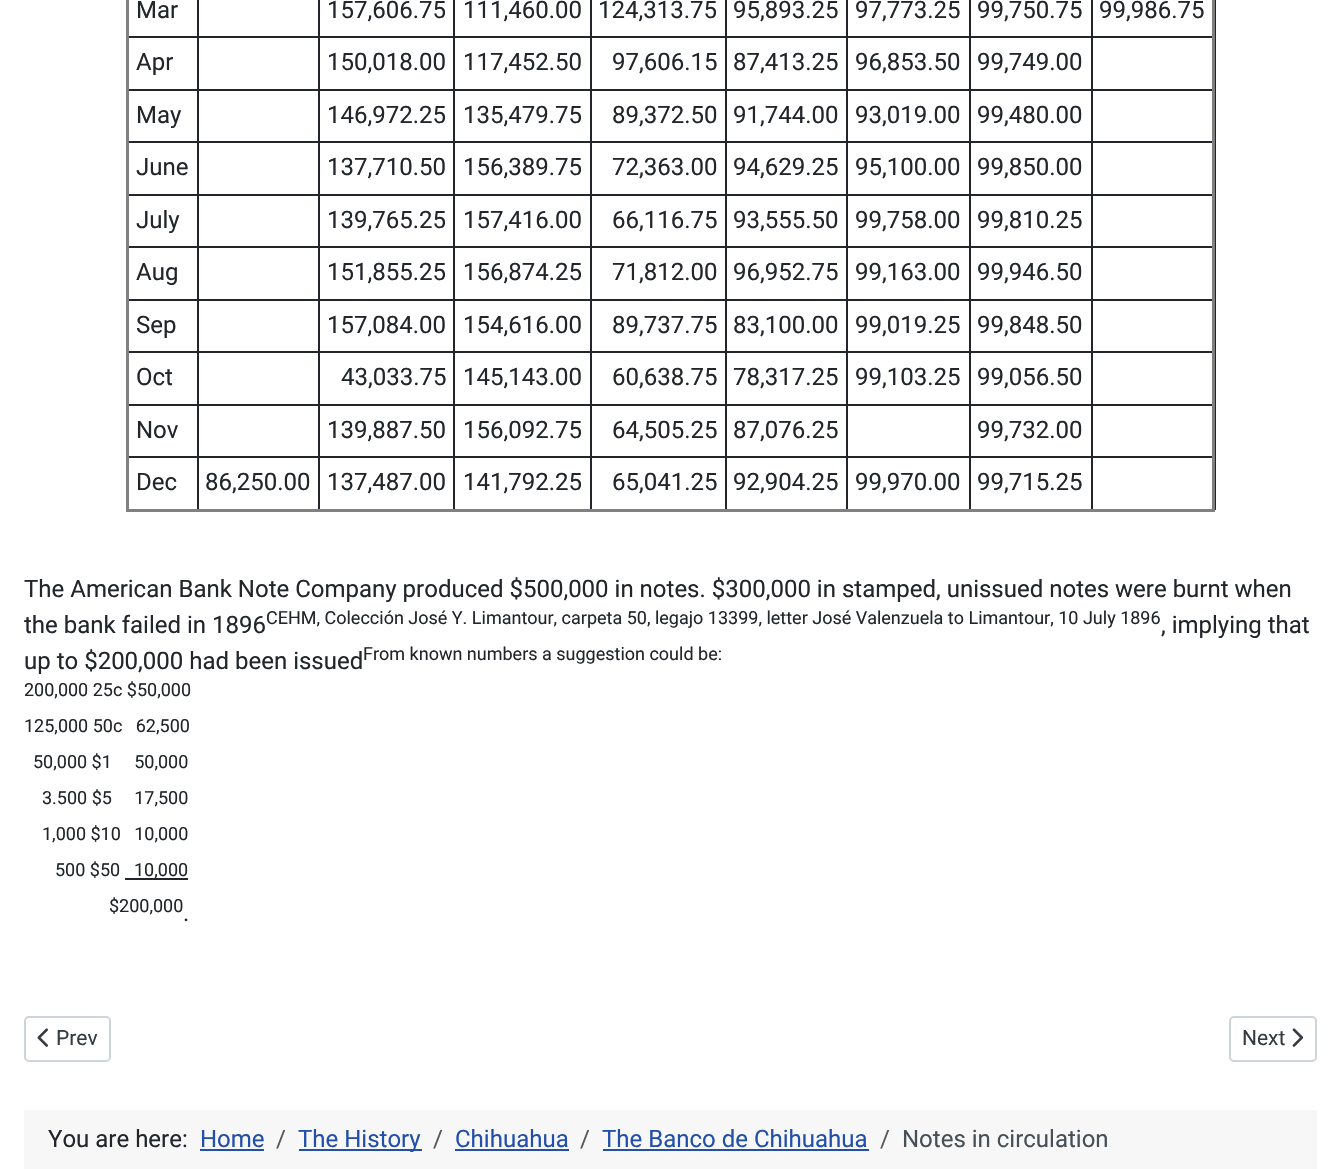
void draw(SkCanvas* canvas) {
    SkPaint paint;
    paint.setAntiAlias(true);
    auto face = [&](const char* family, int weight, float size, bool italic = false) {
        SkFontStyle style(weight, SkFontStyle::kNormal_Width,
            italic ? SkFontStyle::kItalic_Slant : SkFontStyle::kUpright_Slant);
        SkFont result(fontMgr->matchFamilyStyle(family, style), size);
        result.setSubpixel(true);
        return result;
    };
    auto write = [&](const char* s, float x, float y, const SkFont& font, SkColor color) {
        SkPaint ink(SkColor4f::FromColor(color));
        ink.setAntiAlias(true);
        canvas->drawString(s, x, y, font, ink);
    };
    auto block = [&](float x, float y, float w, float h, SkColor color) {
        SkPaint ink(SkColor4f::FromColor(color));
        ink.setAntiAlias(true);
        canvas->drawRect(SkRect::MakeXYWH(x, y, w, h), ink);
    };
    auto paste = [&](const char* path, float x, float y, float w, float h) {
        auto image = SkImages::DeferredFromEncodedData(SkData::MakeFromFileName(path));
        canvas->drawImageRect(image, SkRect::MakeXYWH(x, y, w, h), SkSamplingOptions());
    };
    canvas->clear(SK_ColorWHITE);
    block(1091, 36, 124, 2, SkColorSetRGB(34, 38, 42));
    block(1091, 89, 124, 2, SkColorSetRGB(34, 38, 42));
    block(1091, 141, 124, 2, SkColorSetRGB(34, 38, 42));
    block(1091, 194, 124, 2, SkColorSetRGB(34, 38, 42));
    block(1091, 246, 124, 2, SkColorSetRGB(34, 38, 42));
    block(1091, 299, 124, 2, SkColorSetRGB(34, 38, 42));
    block(1091, 351, 124, 2, SkColorSetRGB(34, 38, 42));
    block(1091, 404, 124, 2, SkColorSetRGB(34, 38, 42));
    block(1091, 456, 124, 2, SkColorSetRGB(34, 38, 42));
    block(1212, 0, 3, 512, SkColorSetRGB(128, 128, 128));
    block(1091, 456, 2, 54, SkColorSetRGB(34, 38, 42));
    block(969, 456, 123, 2, SkColorSetRGB(34, 38, 42));
    block(969, 456, 2, 54, SkColorSetRGB(34, 38, 42));
    block(846, 456, 125, 2, SkColorSetRGB(34, 38, 42));
    block(846, 456, 2, 54, SkColorSetRGB(34, 38, 42));
    block(725, 456, 123, 2, SkColorSetRGB(34, 38, 42));
    block(725, 456, 2, 54, SkColorSetRGB(34, 38, 42));
    block(590, 456, 136, 2, SkColorSetRGB(34, 38, 42));
    block(590, 456, 2, 54, SkColorSetRGB(34, 38, 42));
    block(453, 456, 138, 2, SkColorSetRGB(34, 38, 42));
    block(453, 456, 2, 54, SkColorSetRGB(34, 38, 42));
    block(318, 456, 137, 2, SkColorSetRGB(34, 38, 42));
    block(318, 456, 2, 54, SkColorSetRGB(34, 38, 42));
    block(197, 456, 123, 2, SkColorSetRGB(34, 38, 42));
    block(197, 456, 2, 54, SkColorSetRGB(34, 38, 42));
    block(126, 509, 1089, 3, SkColorSetRGB(128, 128, 128));
    block(1091, 404, 2, 54, SkColorSetRGB(34, 38, 42));
    block(969, 404, 123, 2, SkColorSetRGB(34, 38, 42));
    block(1091, 351, 2, 54, SkColorSetRGB(34, 38, 42));
    block(969, 351, 123, 2, SkColorSetRGB(34, 38, 42));
    block(1091, 299, 2, 54, SkColorSetRGB(34, 38, 42));
    block(969, 299, 123, 2, SkColorSetRGB(34, 38, 42));
    block(1091, 246, 2, 54, SkColorSetRGB(34, 38, 42));
    block(969, 246, 123, 2, SkColorSetRGB(34, 38, 42));
    block(1091, 194, 2, 54, SkColorSetRGB(34, 38, 42));
    block(969, 194, 123, 2, SkColorSetRGB(34, 38, 42));
    block(1091, 141, 2, 54, SkColorSetRGB(34, 38, 42));
    block(969, 141, 123, 2, SkColorSetRGB(34, 38, 42));
    block(1091, 89, 2, 54, SkColorSetRGB(34, 38, 42));
    block(969, 89, 123, 2, SkColorSetRGB(34, 38, 42));
    block(1091, 36, 2, 54, SkColorSetRGB(34, 38, 42));
    block(969, 36, 123, 2, SkColorSetRGB(34, 38, 42));
    block(969, 404, 2, 54, SkColorSetRGB(34, 38, 42));
    block(846, 404, 125, 2, SkColorSetRGB(34, 38, 42));
    block(969, 351, 2, 54, SkColorSetRGB(34, 38, 42));
    block(846, 351, 125, 2, SkColorSetRGB(34, 38, 42));
    block(969, 299, 2, 54, SkColorSetRGB(34, 38, 42));
    block(846, 299, 125, 2, SkColorSetRGB(34, 38, 42));
    block(969, 246, 2, 54, SkColorSetRGB(34, 38, 42));
    block(846, 246, 125, 2, SkColorSetRGB(34, 38, 42));
    block(969, 194, 2, 54, SkColorSetRGB(34, 38, 42));
    block(846, 194, 125, 2, SkColorSetRGB(34, 38, 42));
    block(969, 141, 2, 54, SkColorSetRGB(34, 38, 42));
    block(846, 141, 125, 2, SkColorSetRGB(34, 38, 42));
    block(969, 89, 2, 54, SkColorSetRGB(34, 38, 42));
    block(846, 89, 125, 2, SkColorSetRGB(34, 38, 42));
    block(969, 36, 2, 54, SkColorSetRGB(34, 38, 42));
    block(846, 36, 125, 2, SkColorSetRGB(34, 38, 42));
    block(846, 404, 2, 54, SkColorSetRGB(34, 38, 42));
    block(725, 404, 123, 2, SkColorSetRGB(34, 38, 42));
    block(846, 351, 2, 54, SkColorSetRGB(34, 38, 42));
    block(725, 351, 123, 2, SkColorSetRGB(34, 38, 42));
    block(846, 299, 2, 54, SkColorSetRGB(34, 38, 42));
    block(725, 299, 123, 2, SkColorSetRGB(34, 38, 42));
    block(846, 246, 2, 54, SkColorSetRGB(34, 38, 42));
    block(725, 246, 123, 2, SkColorSetRGB(34, 38, 42));
    block(846, 194, 2, 54, SkColorSetRGB(34, 38, 42));
    block(725, 194, 123, 2, SkColorSetRGB(34, 38, 42));
    block(846, 141, 2, 54, SkColorSetRGB(34, 38, 42));
    block(725, 141, 123, 2, SkColorSetRGB(34, 38, 42));
    block(846, 89, 2, 54, SkColorSetRGB(34, 38, 42));
    block(725, 89, 123, 2, SkColorSetRGB(34, 38, 42));
    block(846, 36, 2, 54, SkColorSetRGB(34, 38, 42));
    block(725, 36, 123, 2, SkColorSetRGB(34, 38, 42));
    block(725, 404, 2, 54, SkColorSetRGB(34, 38, 42));
    block(590, 404, 136, 2, SkColorSetRGB(34, 38, 42));
    block(725, 351, 2, 54, SkColorSetRGB(34, 38, 42));
    block(590, 351, 136, 2, SkColorSetRGB(34, 38, 42));
    block(725, 299, 2, 54, SkColorSetRGB(34, 38, 42));
    block(590, 299, 136, 2, SkColorSetRGB(34, 38, 42));
    block(725, 246, 2, 54, SkColorSetRGB(34, 38, 42));
    block(590, 246, 136, 2, SkColorSetRGB(34, 38, 42));
    block(725, 194, 2, 54, SkColorSetRGB(34, 38, 42));
    block(590, 194, 136, 2, SkColorSetRGB(34, 38, 42));
    block(725, 141, 2, 54, SkColorSetRGB(34, 38, 42));
    block(590, 141, 136, 2, SkColorSetRGB(34, 38, 42));
    block(725, 89, 2, 54, SkColorSetRGB(34, 38, 42));
    block(590, 89, 136, 2, SkColorSetRGB(34, 38, 42));
    block(725, 36, 2, 54, SkColorSetRGB(34, 38, 42));
    block(590, 36, 136, 2, SkColorSetRGB(34, 38, 42));
    block(590, 404, 2, 54, SkColorSetRGB(34, 38, 42));
    block(453, 404, 138, 2, SkColorSetRGB(34, 38, 42));
    block(590, 351, 2, 54, SkColorSetRGB(34, 38, 42));
    block(453, 351, 138, 2, SkColorSetRGB(34, 38, 42));
    block(590, 299, 2, 54, SkColorSetRGB(34, 38, 42));
    block(453, 299, 138, 2, SkColorSetRGB(34, 38, 42));
    block(590, 246, 2, 54, SkColorSetRGB(34, 38, 42));
    block(453, 246, 138, 2, SkColorSetRGB(34, 38, 42));
    block(590, 194, 2, 54, SkColorSetRGB(34, 38, 42));
    block(453, 194, 138, 2, SkColorSetRGB(34, 38, 42));
    block(590, 141, 2, 54, SkColorSetRGB(34, 38, 42));
    block(453, 141, 138, 2, SkColorSetRGB(34, 38, 42));
    block(590, 89, 2, 54, SkColorSetRGB(34, 38, 42));
    block(453, 89, 138, 2, SkColorSetRGB(34, 38, 42));
    block(590, 36, 2, 54, SkColorSetRGB(34, 38, 42));
    block(453, 36, 138, 2, SkColorSetRGB(34, 38, 42));
    block(453, 404, 2, 54, SkColorSetRGB(34, 38, 42));
    block(318, 404, 137, 2, SkColorSetRGB(34, 38, 42));
    block(453, 351, 2, 54, SkColorSetRGB(34, 38, 42));
    block(318, 351, 137, 2, SkColorSetRGB(34, 38, 42));
    block(453, 299, 2, 54, SkColorSetRGB(34, 38, 42));
    block(318, 299, 137, 2, SkColorSetRGB(34, 38, 42));
    block(453, 246, 2, 54, SkColorSetRGB(34, 38, 42));
    block(318, 246, 137, 2, SkColorSetRGB(34, 38, 42));
    block(453, 194, 2, 54, SkColorSetRGB(34, 38, 42));
    block(318, 194, 137, 2, SkColorSetRGB(34, 38, 42));
    block(453, 141, 2, 54, SkColorSetRGB(34, 38, 42));
    block(318, 141, 137, 2, SkColorSetRGB(34, 38, 42));
    block(453, 89, 2, 54, SkColorSetRGB(34, 38, 42));
    block(318, 89, 137, 2, SkColorSetRGB(34, 38, 42));
    block(453, 36, 2, 54, SkColorSetRGB(34, 38, 42));
    block(318, 36, 137, 2, SkColorSetRGB(34, 38, 42));
    block(318, 404, 2, 54, SkColorSetRGB(34, 38, 42));
    block(197, 404, 123, 2, SkColorSetRGB(34, 38, 42));
    block(318, 351, 2, 54, SkColorSetRGB(34, 38, 42));
    block(197, 351, 123, 2, SkColorSetRGB(34, 38, 42));
    block(318, 299, 2, 54, SkColorSetRGB(34, 38, 42));
    block(197, 299, 123, 2, SkColorSetRGB(34, 38, 42));
    block(318, 246, 2, 54, SkColorSetRGB(34, 38, 42));
    block(197, 246, 123, 2, SkColorSetRGB(34, 38, 42));
    block(318, 194, 2, 54, SkColorSetRGB(34, 38, 42));
    block(197, 194, 123, 2, SkColorSetRGB(34, 38, 42));
    block(318, 141, 2, 54, SkColorSetRGB(34, 38, 42));
    block(197, 141, 123, 2, SkColorSetRGB(34, 38, 42));
    block(318, 89, 2, 54, SkColorSetRGB(34, 38, 42));
    block(197, 89, 123, 2, SkColorSetRGB(34, 38, 42));
    block(318, 36, 2, 54, SkColorSetRGB(34, 38, 42));
    block(197, 36, 123, 2, SkColorSetRGB(34, 38, 42));
    block(126, 456, 72, 2, SkColorSetRGB(34, 38, 42));
    block(197, 404, 2, 54, SkColorSetRGB(34, 38, 42));
    block(126, 404, 72, 2, SkColorSetRGB(34, 38, 42));
    block(197, 351, 2, 54, SkColorSetRGB(34, 38, 42));
    block(126, 351, 72, 2, SkColorSetRGB(34, 38, 42));
    block(197, 299, 2, 54, SkColorSetRGB(34, 38, 42));
    block(126, 299, 72, 2, SkColorSetRGB(34, 38, 42));
    block(197, 246, 2, 54, SkColorSetRGB(34, 38, 42));
    block(126, 246, 72, 2, SkColorSetRGB(34, 38, 42));
    block(197, 194, 2, 54, SkColorSetRGB(34, 38, 42));
    block(126, 194, 72, 2, SkColorSetRGB(34, 38, 42));
    block(197, 141, 2, 54, SkColorSetRGB(34, 38, 42));
    block(126, 141, 72, 2, SkColorSetRGB(34, 38, 42));
    block(197, 89, 2, 54, SkColorSetRGB(34, 38, 42));
    block(126, 89, 72, 2, SkColorSetRGB(34, 38, 42));
    block(197, 36, 2, 54, SkColorSetRGB(34, 38, 42));
    block(126, 36, 72, 2, SkColorSetRGB(34, 38, 42));
    block(126, 0, 3, 512, SkColorSetRGB(128, 128, 128));
    auto kFont1 = face("Roboto", 400, 24);
    write("Mar", 136, 18, kFont1, SkColorSetRGB(34, 38, 42));
    block(197, 0, 2, 38, SkColorSetRGB(34, 38, 42));
    block(318, 0, 2, 38, SkColorSetRGB(34, 38, 42));
    write("157,606.75", 327, 18, kFont1, SkColorSetRGB(34, 38, 42));
    block(453, 0, 2, 38, SkColorSetRGB(34, 38, 42));
    write("111,460.00", 463, 18, kFont1, SkColorSetRGB(34, 38, 42));
    block(590, 0, 2, 38, SkColorSetRGB(34, 38, 42));
    write("124,313.75", 598, 18, kFont1, SkColorSetRGB(34, 38, 42));
    block(725, 0, 2, 38, SkColorSetRGB(34, 38, 42));
    write("95,893.25", 733, 18, kFont1, SkColorSetRGB(34, 38, 42));
    block(846, 0, 2, 38, SkColorSetRGB(34, 38, 42));
    write("97,773.25", 855, 18, kFont1, SkColorSetRGB(34, 38, 42));
    block(969, 0, 2, 38, SkColorSetRGB(34, 38, 42));
    write("99,750.75", 977, 18, kFont1, SkColorSetRGB(34, 38, 42));
    block(1091, 0, 2, 38, SkColorSetRGB(34, 38, 42));
    write("99,986.75", 1099, 18, kFont1, SkColorSetRGB(34, 38, 42));
    write("Apr", 136, 70, kFont1, SkColorSetRGB(34, 38, 42));
    write("150,018.00", 327, 70, kFont1, SkColorSetRGB(34, 38, 42));
    write("117,452.50", 463, 70, kFont1, SkColorSetRGB(34, 38, 42));
    write("97,606.15", 612, 70, kFont1, SkColorSetRGB(34, 38, 42));
    write("87,413.25", 733, 70, kFont1, SkColorSetRGB(34, 38, 42));
    write("96,853.50", 855, 70, kFont1, SkColorSetRGB(34, 38, 42));
    write("99,749.00", 977, 70, kFont1, SkColorSetRGB(34, 38, 42));
    write("May", 136, 123, kFont1, SkColorSetRGB(34, 38, 42));
    write("146,972.25", 327, 123, kFont1, SkColorSetRGB(34, 38, 42));
    write("135,479.75", 463, 123, kFont1, SkColorSetRGB(34, 38, 42));
    write("89,372.50", 612, 123, kFont1, SkColorSetRGB(34, 38, 42));
    write("91,744.00", 733, 123, kFont1, SkColorSetRGB(34, 38, 42));
    write("93,019.00", 855, 123, kFont1, SkColorSetRGB(34, 38, 42));
    write("99,480.00", 977, 123, kFont1, SkColorSetRGB(34, 38, 42));
    write("June", 136, 175, kFont1, SkColorSetRGB(34, 38, 42));
    write("137,710.50", 327, 175, kFont1, SkColorSetRGB(34, 38, 42));
    write("156,389.75", 463, 175, kFont1, SkColorSetRGB(34, 38, 42));
    write("72,363.00", 612, 175, kFont1, SkColorSetRGB(34, 38, 42));
    write("94,629.25", 733, 175, kFont1, SkColorSetRGB(34, 38, 42));
    write("95,100.00", 855, 175, kFont1, SkColorSetRGB(34, 38, 42));
    write("99,850.00", 977, 175, kFont1, SkColorSetRGB(34, 38, 42));
    write("July", 136, 228, kFont1, SkColorSetRGB(34, 38, 42));
    write("139,765.25", 327, 228, kFont1, SkColorSetRGB(34, 38, 42));
    write("157,416.00", 463, 228, kFont1, SkColorSetRGB(34, 38, 42));
    write("66,116.75", 612, 228, kFont1, SkColorSetRGB(34, 38, 42));
    write("93,555.50", 733, 228, kFont1, SkColorSetRGB(34, 38, 42));
    write("99,758.00", 855, 228, kFont1, SkColorSetRGB(34, 38, 42));
    write("99,810.25", 977, 228, kFont1, SkColorSetRGB(34, 38, 42));
    write("Aug", 136, 280, kFont1, SkColorSetRGB(34, 38, 42));
    write("151,855.25", 327, 280, kFont1, SkColorSetRGB(34, 38, 42));
    write("156,874.25", 463, 280, kFont1, SkColorSetRGB(34, 38, 42));
    write("71,812.00", 612, 280, kFont1, SkColorSetRGB(34, 38, 42));
    write("96,952.75", 733, 280, kFont1, SkColorSetRGB(34, 38, 42));
    write("99,163.00", 855, 280, kFont1, SkColorSetRGB(34, 38, 42));
    write("99,946.50", 977, 280, kFont1, SkColorSetRGB(34, 38, 42));
    write("Sep", 136, 333, kFont1, SkColorSetRGB(34, 38, 42));
    write("157,084.00", 327, 333, kFont1, SkColorSetRGB(34, 38, 42));
    write("154,616.00", 463, 333, kFont1, SkColorSetRGB(34, 38, 42));
    write("89,737.75", 612, 333, kFont1, SkColorSetRGB(34, 38, 42));
    write("83,100.00", 733, 333, kFont1, SkColorSetRGB(34, 38, 42));
    write("99,019.25", 855, 333, kFont1, SkColorSetRGB(34, 38, 42));
    write("99,848.50", 977, 333, kFont1, SkColorSetRGB(34, 38, 42));
    write("Oct", 136, 385, kFont1, SkColorSetRGB(34, 38, 42));
    write("43,033.75", 341, 385, kFont1, SkColorSetRGB(34, 38, 42));
    write("145,143.00", 463, 385, kFont1, SkColorSetRGB(34, 38, 42));
    write("60,638.75", 612, 385, kFont1, SkColorSetRGB(34, 38, 42));
    write("78,317.25", 733, 385, kFont1, SkColorSetRGB(34, 38, 42));
    write("99,103.25", 855, 385, kFont1, SkColorSetRGB(34, 38, 42));
    write("99,056.50", 977, 385, kFont1, SkColorSetRGB(34, 38, 42));
    write("Nov", 136, 438, kFont1, SkColorSetRGB(34, 38, 42));
    write("139,887.50", 327, 438, kFont1, SkColorSetRGB(34, 38, 42));
    write("156,092.75", 463, 438, kFont1, SkColorSetRGB(34, 38, 42));
    write("64,505.25", 612, 438, kFont1, SkColorSetRGB(34, 38, 42));
    write("87,076.25", 733, 438, kFont1, SkColorSetRGB(34, 38, 42));
    write("99,732.00", 977, 438, kFont1, SkColorSetRGB(34, 38, 42));
    write("Dec", 136, 490, kFont1, SkColorSetRGB(34, 38, 42));
    write("86,250.00", 205, 490, kFont1, SkColorSetRGB(34, 38, 42));
    write("137,487.00", 327, 490, kFont1, SkColorSetRGB(34, 38, 42));
    write("141,792.25", 463, 490, kFont1, SkColorSetRGB(34, 38, 42));
    write("65,041.25", 612, 490, kFont1, SkColorSetRGB(34, 38, 42));
    write("92,904.25", 733, 490, kFont1, SkColorSetRGB(34, 38, 42));
    write("99,970.00", 855, 490, kFont1, SkColorSetRGB(34, 38, 42));
    write("99,715.25", 977, 490, kFont1, SkColorSetRGB(34, 38, 42));
    block(1215, 0, 1, 510, SkColorSetRGB(34, 38, 42));
    write("The American Bank Note Company produced $500,000 in notes. $300,000 in stamped, unissued notes were burnt when", 24, 597, kFont1, SkColorSetRGB(34, 38, 42));
    write("the bank failed in 1896", 24, 633, kFont1, SkColorSetRGB(34, 38, 42));
    auto kFont2 = face("Roboto", 400, 18);
    write("CEHM, Colección José Y. Limantour, carpeta 50, legajo 13399, letter José Valenzuela to Limantour, 10 July 1896", 266, 624, kFont2, SkColorSetRGB(34, 38, 42));
    write(", implying that", 1161, 633, kFont1, SkColorSetRGB(34, 38, 42));
    write("up to $200,000 had been issued", 24, 669, kFont1, SkColorSetRGB(34, 38, 42));
    write("From known numbers a suggestion could be:", 363, 660, kFont2, SkColorSetRGB(34, 38, 42));
    write("200,000 25c $50,000", 24, 696, kFont2, SkColorSetRGB(34, 38, 42));
    write("125,000 50c   62,500", 24, 732, kFont2, SkColorSetRGB(34, 38, 42));
    write("50,000 $1     50,000", 33, 768, kFont2, SkColorSetRGB(34, 38, 42));
    write("3.500 $5     17,500", 42, 804, kFont2, SkColorSetRGB(34, 38, 42));
    write("1,000 $10   10,000", 42, 840, kFont2, SkColorSetRGB(34, 38, 42));
    write("500 $50", 55, 876, kFont2, SkColorSetRGB(34, 38, 42));
    block(125, 878, 63, 2, SkColorSetRGB(34, 38, 42));
    write("10,000", 134, 876, kFont2, SkColorSetRGB(34, 38, 42));
    write("$200,000", 109, 912, kFont2, SkColorSetRGB(34, 38, 42));
    write(".", 183, 921, kFont1, SkColorSetRGB(34, 38, 42));
    paint.setStyle(SkPaint::kStroke_Style);
    paint.setStrokeWidth(2);
    paint.setColor(SkColorSetRGB(206, 212, 218));
    canvas->drawRoundRect(SkRect::MakeXYWH(25, 1017, 85, 44), 4, 4, paint);
    paste("pic1.png", 37, 1028, 11, 19);
    auto kFont3 = face("Roboto", 400, 21);
    write("Prev", 56, 1045, kFont3, SkColorSetRGB(53, 59, 65));
    canvas->drawRoundRect(SkRect::MakeXYWH(1230, 1017, 86, 44), 4, 4, paint);
    write("Next", 1242, 1045, kFont3, SkColorSetRGB(53, 59, 65));
    paste("pic2.png", 1292, 1028, 12, 19);
    block(24, 1110, 1293, 59, SkColorSetRGB(247, 247, 247));
    write("You are here:", 48, 1147, kFont1, SkColorSetRGB(34, 38, 42));
    write("Home", 200, 1147, kFont1, SkColorSetRGB(34, 79, 170));
    block(200, 1149, 64, 2, SkColorSetRGB(34, 79, 170));
    write("/", 276, 1147, kFont1, SkColorSetRGB(87, 90, 93));
    block(299, 1149, 123, 2, SkColorSetRGB(34, 79, 170));
    write("The History", 298, 1147, kFont1, SkColorSetRGB(34, 79, 170));
    write("/", 433, 1147, kFont1, SkColorSetRGB(87, 90, 93));
    write("Chihuahua", 455, 1147, kFont1, SkColorSetRGB(34, 79, 170));
    block(455, 1149, 114, 2, SkColorSetRGB(34, 79, 170));
    write("/", 580, 1147, kFont1, SkColorSetRGB(87, 90, 93));
    write("The Banco de Chihuahua", 602, 1147, kFont1, SkColorSetRGB(34, 79, 170));
    block(603, 1149, 266, 2, SkColorSetRGB(34, 79, 170));
    write("/", 880, 1147, kFont1, SkColorSetRGB(87, 90, 93));
    write("Notes in circulation", 902, 1147, kFont1, SkColorSetRGB(72, 79, 86));
}
